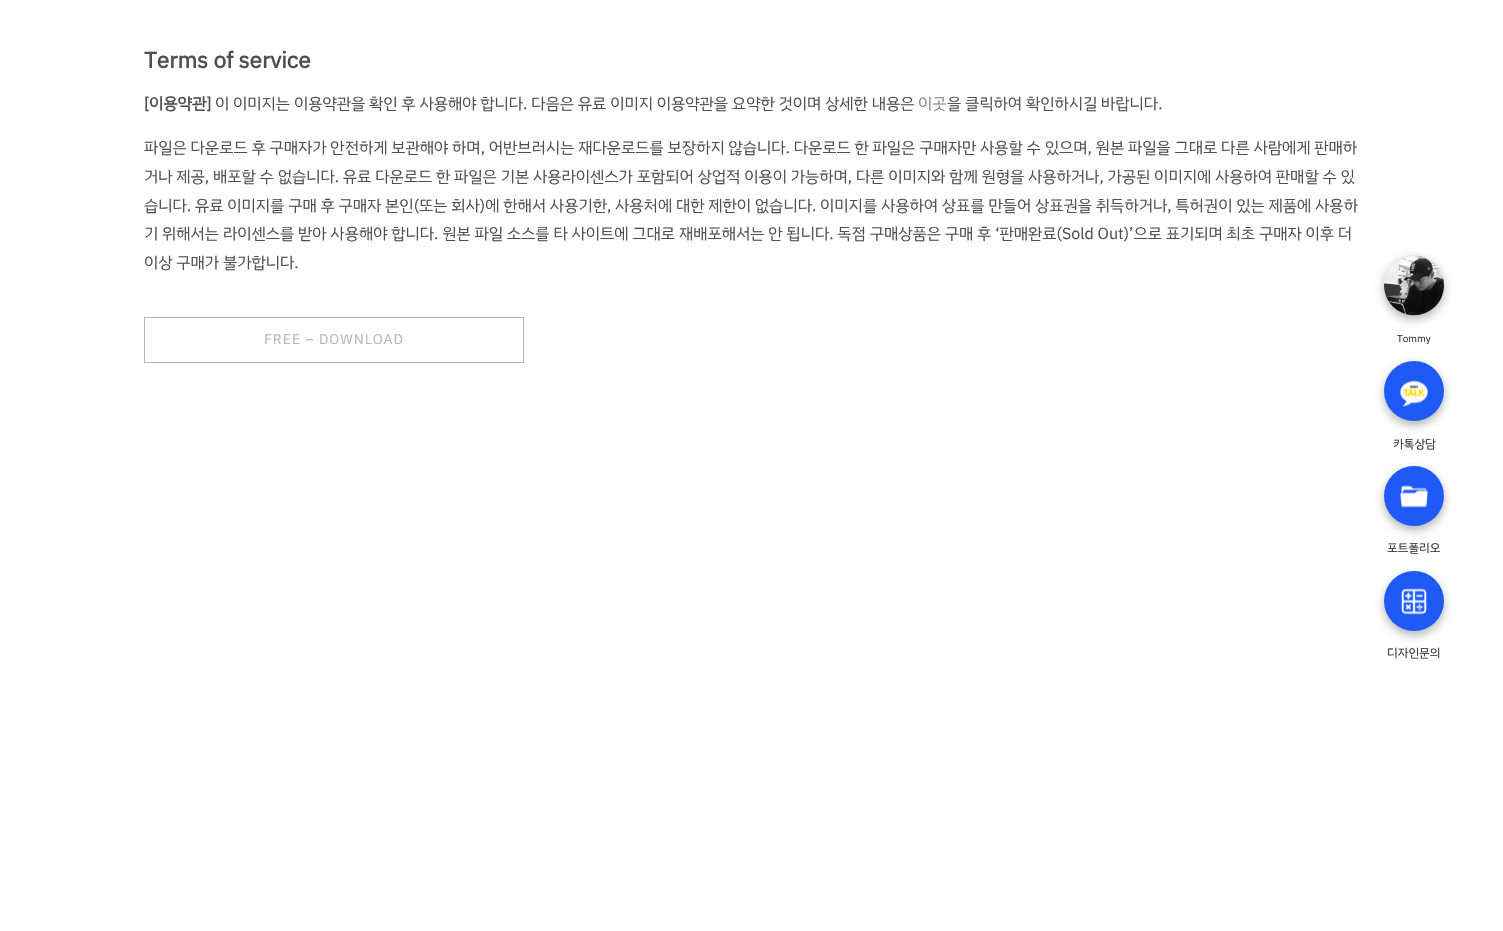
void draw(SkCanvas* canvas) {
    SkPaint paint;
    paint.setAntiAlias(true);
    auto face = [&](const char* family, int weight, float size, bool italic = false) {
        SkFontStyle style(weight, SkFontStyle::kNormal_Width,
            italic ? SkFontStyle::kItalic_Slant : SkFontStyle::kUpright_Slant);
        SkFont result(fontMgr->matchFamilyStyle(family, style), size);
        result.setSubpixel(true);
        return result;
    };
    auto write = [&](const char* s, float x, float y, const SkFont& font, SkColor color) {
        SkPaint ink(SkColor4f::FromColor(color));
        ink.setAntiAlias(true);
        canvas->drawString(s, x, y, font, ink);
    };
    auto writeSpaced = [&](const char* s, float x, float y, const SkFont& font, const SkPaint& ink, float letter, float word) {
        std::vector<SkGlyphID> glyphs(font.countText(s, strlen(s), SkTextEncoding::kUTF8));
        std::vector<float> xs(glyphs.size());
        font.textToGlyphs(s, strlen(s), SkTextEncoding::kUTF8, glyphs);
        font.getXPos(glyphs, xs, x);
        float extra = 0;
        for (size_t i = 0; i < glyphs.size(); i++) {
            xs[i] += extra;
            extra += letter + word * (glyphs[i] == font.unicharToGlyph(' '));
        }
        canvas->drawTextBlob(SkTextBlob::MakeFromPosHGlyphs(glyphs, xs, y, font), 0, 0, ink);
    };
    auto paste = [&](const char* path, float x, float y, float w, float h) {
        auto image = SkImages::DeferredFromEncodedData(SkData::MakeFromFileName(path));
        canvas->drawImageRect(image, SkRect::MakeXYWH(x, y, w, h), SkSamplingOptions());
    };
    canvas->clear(SK_ColorWHITE);
    auto kFont1 = face("IBM Plex Sans KR", 700, 22.5f);
    write("Terms of service", 144, 68, kFont1, SkColorSetRGB(79, 79, 79));
    auto kFont2 = face("IBM Plex Sans KR", 700, 16);
    write("[이용약관]", 144, 109, kFont2, SkColorSetRGB(79, 79, 79));
    auto kFont3 = face("IBM Plex Sans KR", 400, 16);
    write("이 이미지는 이용약관을 확인 후 사용해야 합니다. 다음은 유료 이미지 이용약관을 요약한 것이며 상세한 내용은", 215, 109, kFont3, SkColorSetRGB(79, 79, 79));
    write("이곳", 918, 109, kFont3, SkColorSetRGB(135, 135, 135));
    write("을 클릭하여 확인하시길 바랍니다.", 947, 109, kFont3, SkColorSetRGB(79, 79, 79));
    write("파일은 다운로드 후 구매자가 안전하게 보관해야 하며, 어반브러시는 재다운로드를 보장하지 않습니다. 다운로드 한 파일은 구매자만 사용할 수 있으며, 원본 파일을 그대로 다른 사람에게 판매하", 144, 153, kFont3, SkColorSetRGB(79, 79, 79));
    write("거나 제공, 배포할 수 없습니다. 유료 다운로드 한 파일은 기본 사용라이센스가 포함되어 상업적 이용이 가능하며, 다른 이미지와 함께 원형을 사용하거나, 가공된 이미지에 사용하여 판매할 수 있", 144, 182, kFont3, SkColorSetRGB(79, 79, 79));
    write("습니다. 유료 이미지를 구매 후 구매자 본인(또는 회사)에 한해서 사용기한, 사용처에 대한 제한이 없습니다. 이미지를 사용하여 상표를 만들어 상표권을 취득하거나, 특허권이 있는 제품에 사용하", 144, 211, kFont3, SkColorSetRGB(79, 79, 79));
    write("기 위해서는 라이센스를 받아 사용해야 합니다. 원본 파일 소스를 타 사이트에 그대로 재배포해서는 안 됩니다. 독점 구매상품은 구매 후 ‘판매완료(Sold Out)’으로 표기되며 최초 구매자 이후 더", 144, 239, kFont3, SkColorSetRGB(79, 79, 79));
    write("이상 구매가 불가합니다.", 144, 268, kFont3, SkColorSetRGB(79, 79, 79));
    paint.setStyle(SkPaint::kStroke_Style);
    paint.setStrokeWidth(1);
    paint.setColor(SkColorSetRGB(181, 181, 181));
    canvas->drawRect(SkRect::MakeXYWH(144.5f, 317.5f, 379, 45), paint);
    auto kFont4 = face("IBM Plex Sans KR", 400, 14);
    paint.setStyle(SkPaint::kFill_Style);
    writeSpaced("FREE – DOWNLOAD", 264, 344, kFont4, paint, 1, 0);
    paint.setColor(SkColorSetARGB(77, 0, 0, 0));
    paint.setMaskFilter(SkMaskFilter::MakeBlur(kNormal_SkBlurStyle, 5));
    canvas->drawRoundRect(SkRect::MakeXYWH(1384, 259, 60, 60), 30, 30, paint);
    paint.setMaskFilter(nullptr);
    paste("pic1.png", 1384, 255, 60, 61);
    auto kFont5 = face("IBM Plex Sans KR", 400, 10);
    write("Tommy", 1397, 342, kFont5, SkColorSetRGB(51, 51, 51));
    paint.setMaskFilter(SkMaskFilter::MakeBlur(kNormal_SkBlurStyle, 5));
    canvas->drawRoundRect(SkRect::MakeXYWH(1384, 365, 60, 60), 30, 30, paint);
    paint.setMaskFilter(nullptr);
    paint.setColor(SkColorSetRGB(31, 90, 246));
    canvas->drawCircle(1414, 391, 30, paint);
    paste("pic2.png", 1400, 380, 29, 27);
    auto kFont6 = face("IBM Plex Sans KR", 400, 12);
    write("카톡상담", 1393, 448, kFont6, SkColorSetRGB(51, 51, 51));
    paint.setColor(SkColorSetARGB(77, 0, 0, 0));
    paint.setMaskFilter(SkMaskFilter::MakeBlur(kNormal_SkBlurStyle, 5));
    canvas->drawRoundRect(SkRect::MakeXYWH(1384, 470, 60, 60), 30, 30, paint);
    paint.setMaskFilter(nullptr);
    paint.setColor(SkColorSetRGB(31, 90, 246));
    canvas->drawCircle(1414, 496, 30, paint);
    paste("pic3.png", 1400, 485, 28, 23);
    write("포트폴리오", 1387, 552, kFont6, SkColorSetRGB(51, 51, 51));
    paint.setColor(SkColorSetARGB(77, 0, 0, 0));
    paint.setMaskFilter(SkMaskFilter::MakeBlur(kNormal_SkBlurStyle, 5));
    canvas->drawRoundRect(SkRect::MakeXYWH(1384, 575, 60, 60), 30, 30, paint);
    paint.setMaskFilter(nullptr);
    paint.setColor(SkColorSetRGB(31, 90, 246));
    canvas->drawCircle(1414, 601, 30, paint);
    paste("pic4.png", 1401, 588, 26, 27);
    write("디자인문의", 1387, 657, kFont6, SkColorSetRGB(51, 51, 51));
}
